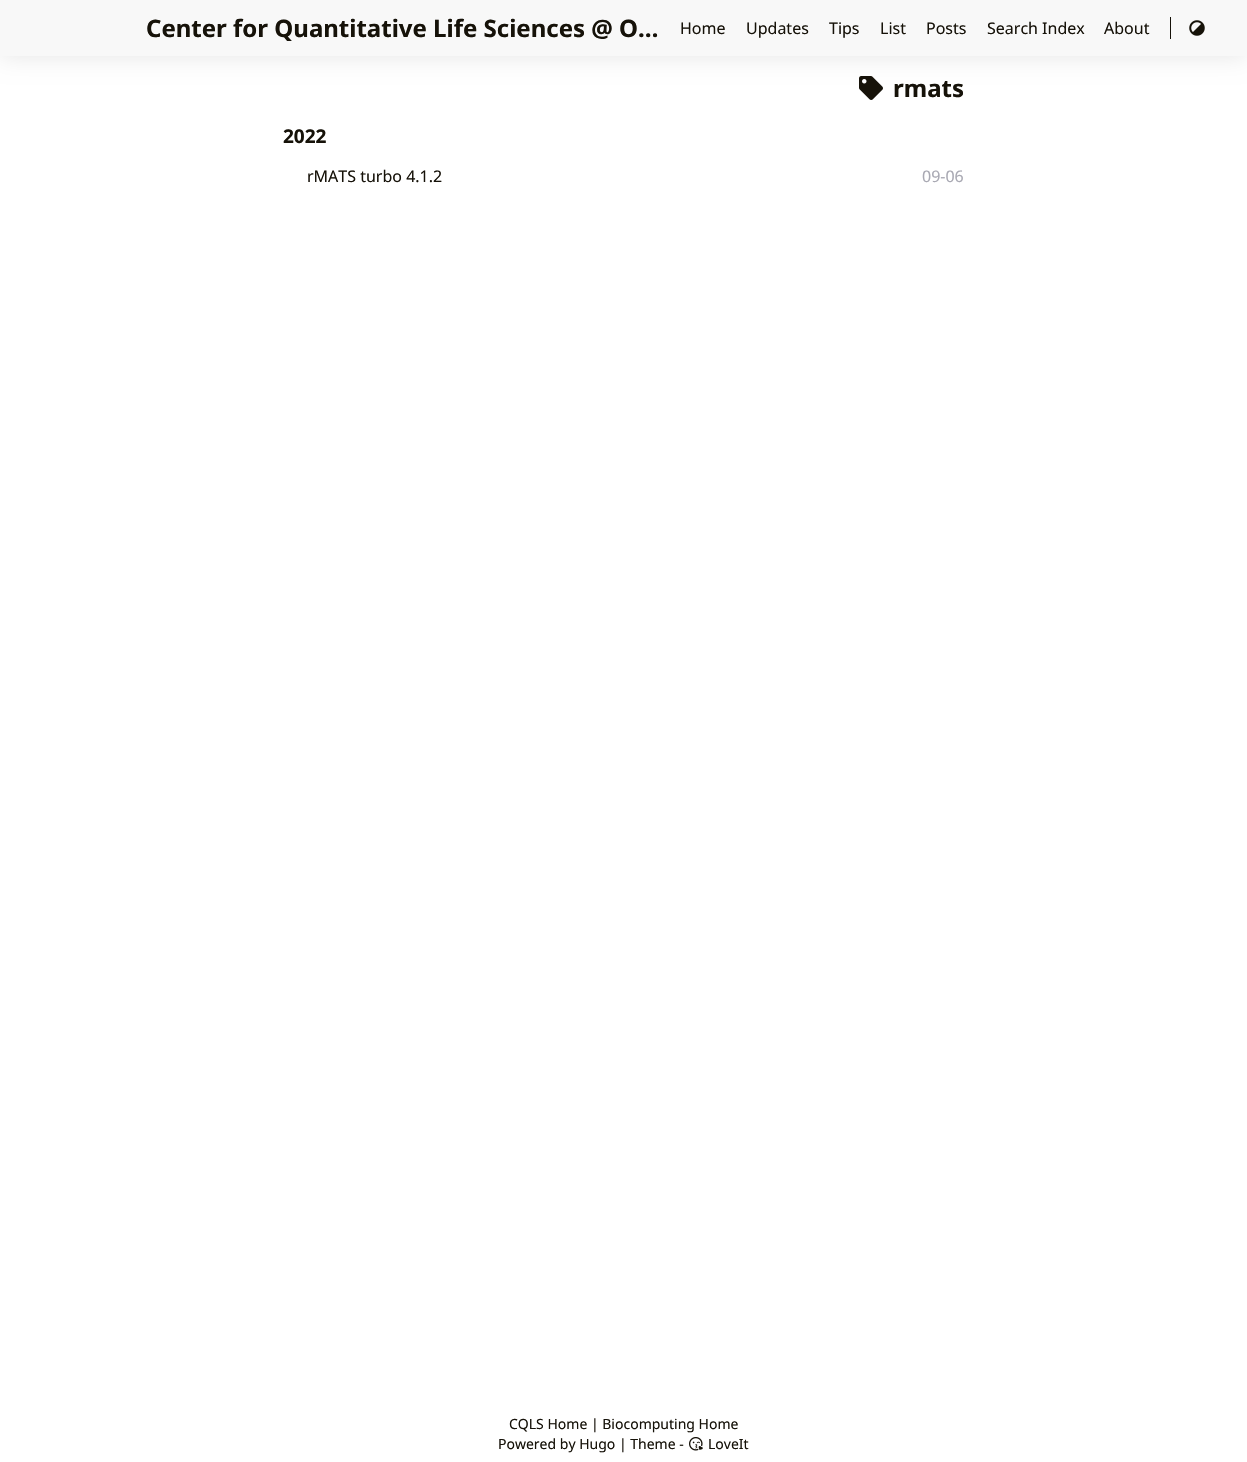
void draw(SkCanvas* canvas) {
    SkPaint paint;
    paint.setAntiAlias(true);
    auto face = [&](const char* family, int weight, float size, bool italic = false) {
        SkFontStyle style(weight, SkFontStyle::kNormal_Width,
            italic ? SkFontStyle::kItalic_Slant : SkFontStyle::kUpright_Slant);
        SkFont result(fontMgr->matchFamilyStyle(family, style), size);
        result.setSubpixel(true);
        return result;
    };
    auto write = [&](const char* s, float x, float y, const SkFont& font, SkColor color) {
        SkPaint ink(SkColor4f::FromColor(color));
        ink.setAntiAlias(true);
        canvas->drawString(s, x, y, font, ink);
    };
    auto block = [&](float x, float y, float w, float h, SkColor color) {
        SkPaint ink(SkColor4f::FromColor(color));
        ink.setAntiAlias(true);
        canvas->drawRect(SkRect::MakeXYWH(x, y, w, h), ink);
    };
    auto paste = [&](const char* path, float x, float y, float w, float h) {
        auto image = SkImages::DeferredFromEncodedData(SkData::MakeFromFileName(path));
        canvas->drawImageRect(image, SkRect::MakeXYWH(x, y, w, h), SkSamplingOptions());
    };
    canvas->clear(SK_ColorWHITE);
    paste("pic2.png", 859, 76, 24, 24);
    paint.setColor(SkColorSetARGB(26, 0, 0, 0));
    paint.setMaskFilter(SkMaskFilter::MakeBlur(kNormal_SkBlurStyle, 12));
    canvas->drawRect(SkRect::MakeXYWH(0, 0, 1247, 56), paint);
    paint.setMaskFilter(nullptr);
    block(0, 0, 1247, 56, SkColorSetRGB(248, 248, 248));
    auto kFont1 = face("Noto Sans", 700, 24);
    write("Center for Quantitative Life Sciences @ O…", 146, 37, kFont1, SkColorSetRGB(22, 18, 9));
    auto kFont2 = face("Noto Sans", 400, 16);
    write("Home", 680, 34, kFont2, SkColorSetRGB(22, 18, 9));
    write("Updates", 746, 34, kFont2, SkColorSetRGB(22, 18, 9));
    write("Tips", 829, 34, kFont2, SkColorSetRGB(22, 18, 9));
    write("List", 880, 34, kFont2, SkColorSetRGB(22, 18, 9));
    write("Posts", 926, 34, kFont2, SkColorSetRGB(22, 18, 9));
    write("Search Index", 987, 34, kFont2, SkColorSetRGB(22, 18, 9));
    write("About", 1104, 34, kFont2, SkColorSetRGB(22, 18, 9));
    block(1170, 17, 1, 22, SkColorSetRGB(22, 18, 9));
    paste("pic1.png", 1189, 20, 16, 16);
    write("rmats", 893, 97, kFont1, SkColorSetRGB(22, 18, 9));
    auto kFont3 = face("Noto Sans", 700, 19);
    write("2022", 283, 143, kFont3, SkColorSetRGB(22, 18, 9));
    write("rMATS turbo 4.1.2", 307, 182, kFont2, SkColorSetRGB(22, 18, 9));
    write("09-06", 922, 182, kFont2, SkColorSetRGB(169, 169, 179));
    auto kFont4 = face("Noto Sans", 400, 14);
    write("CQLS Home | Biocomputing Home", 509, 1429, kFont4, SkColorSetRGB(22, 18, 9));
    write("Powered by Hugo | Theme -", 498, 1449, kFont4, SkColorSetRGB(22, 18, 9));
    paste("pic3.png", 689, 1437, 14, 14);
    write("LoveIt", 708, 1449, kFont4, SkColorSetRGB(22, 18, 9));
}
